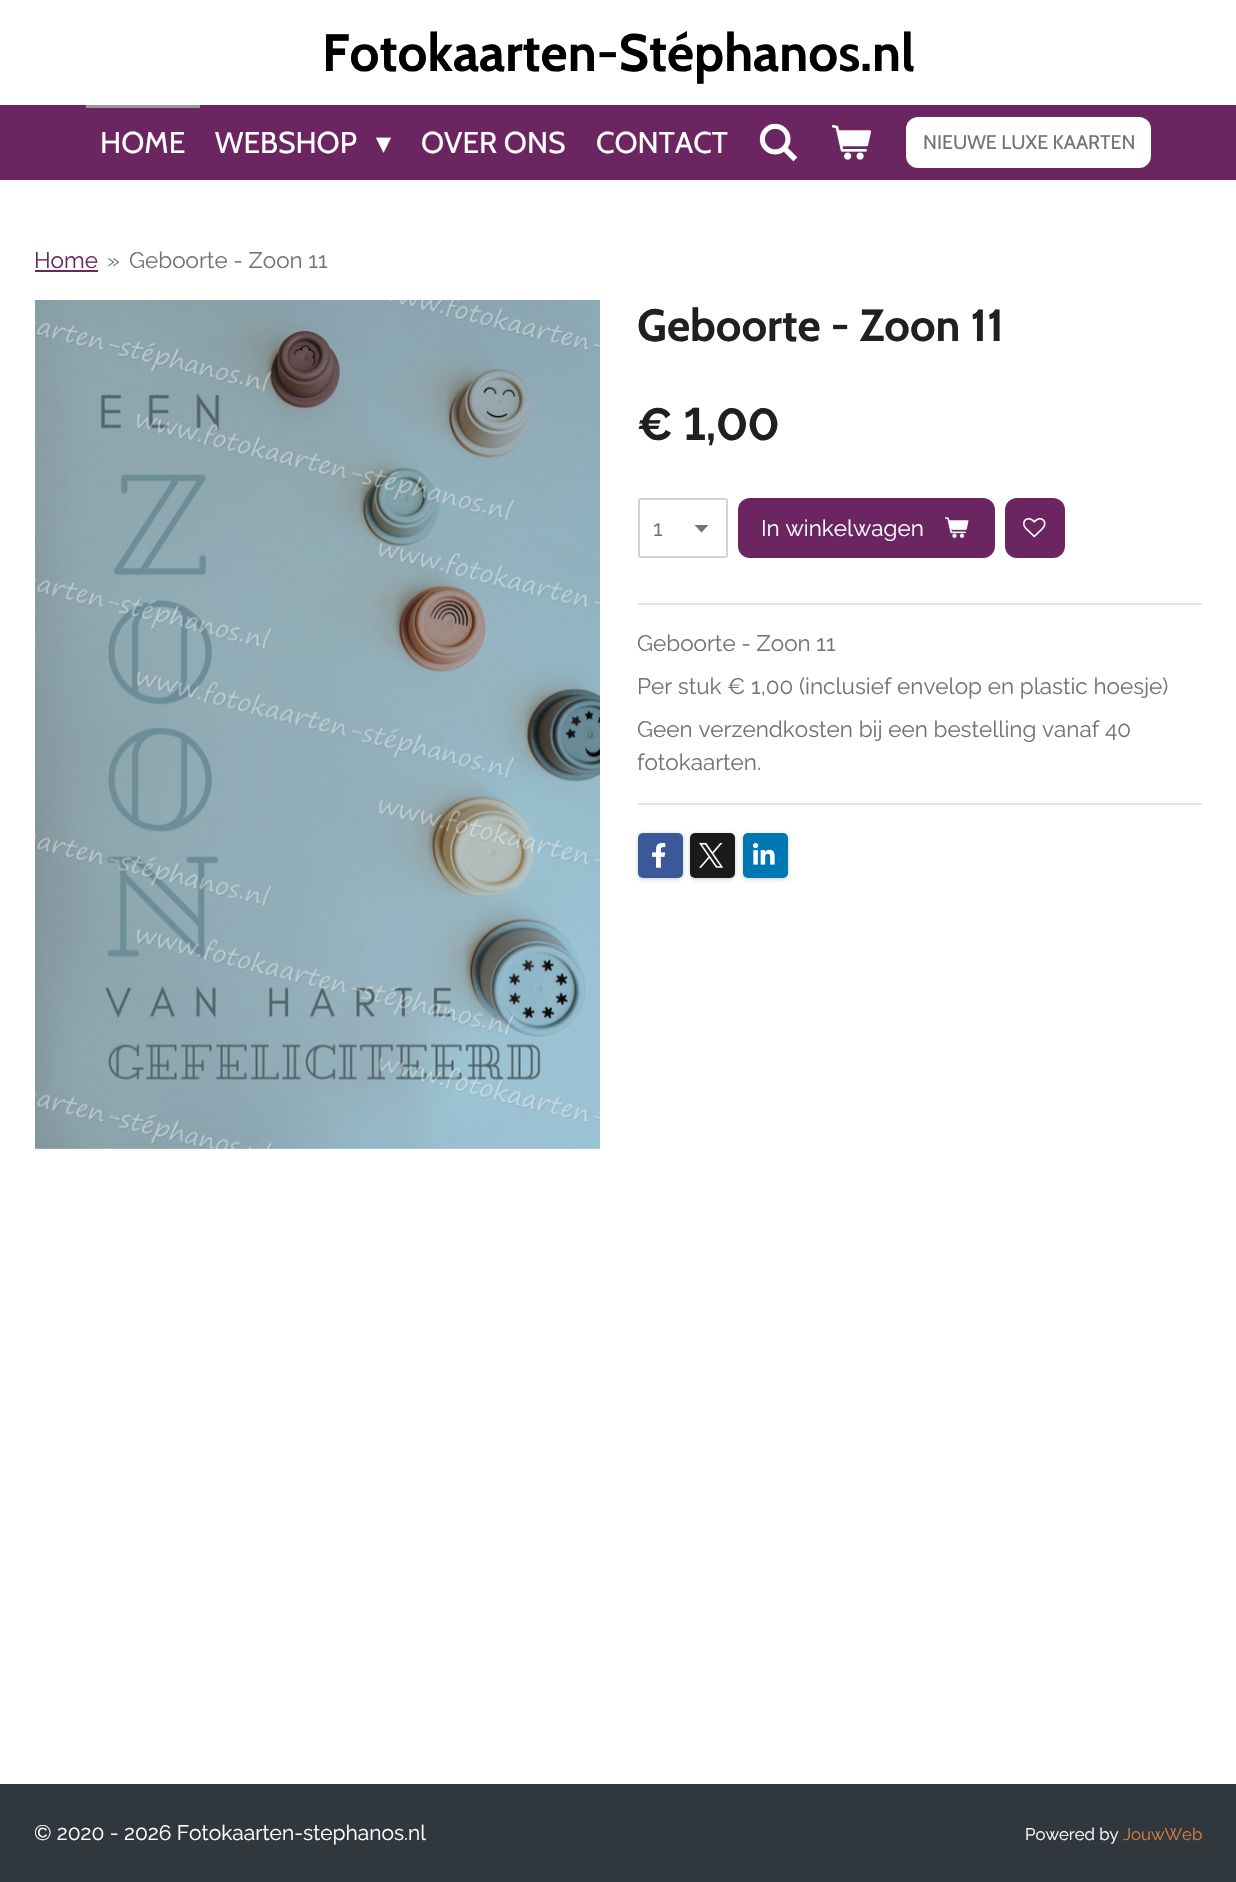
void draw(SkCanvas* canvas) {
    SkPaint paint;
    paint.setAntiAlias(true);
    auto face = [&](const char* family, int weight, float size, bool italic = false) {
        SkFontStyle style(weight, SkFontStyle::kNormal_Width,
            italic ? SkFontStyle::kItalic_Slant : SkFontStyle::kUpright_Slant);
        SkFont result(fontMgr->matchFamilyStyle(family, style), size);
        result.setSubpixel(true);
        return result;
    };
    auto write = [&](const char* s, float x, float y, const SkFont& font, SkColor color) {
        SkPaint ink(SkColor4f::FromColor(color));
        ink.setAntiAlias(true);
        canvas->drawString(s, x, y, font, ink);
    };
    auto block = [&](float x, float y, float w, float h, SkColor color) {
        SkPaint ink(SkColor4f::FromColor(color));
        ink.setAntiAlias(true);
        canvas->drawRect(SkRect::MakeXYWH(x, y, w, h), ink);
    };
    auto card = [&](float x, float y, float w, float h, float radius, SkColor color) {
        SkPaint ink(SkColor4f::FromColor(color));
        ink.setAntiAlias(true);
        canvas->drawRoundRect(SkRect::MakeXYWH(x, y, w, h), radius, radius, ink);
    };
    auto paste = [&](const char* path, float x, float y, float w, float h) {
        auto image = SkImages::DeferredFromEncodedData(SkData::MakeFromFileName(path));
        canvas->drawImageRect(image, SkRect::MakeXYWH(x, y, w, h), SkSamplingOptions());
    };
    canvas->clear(SK_ColorWHITE);
    auto kFont1 = face("Cabin", 700, 52.5f);
    write("Fotokaarten-Stéphanos.nl", 322, 71, kFont1, SK_ColorBLACK);
    block(0, 105, 1236, 75, SkColorSetRGB(107, 37, 97));
    block(86, 105, 114, 3, SkColorSetRGB(153, 153, 153));
    auto kFont2 = face("Cabin", 400, 30);
    write("HOME", 100, 153, kFont2, SK_ColorWHITE);
    write("WEBSHOP", 215, 153, kFont2, SK_ColorWHITE);
    auto kFont3 = face("DejaVu Sans", 400, 30);
    write("▾", 376, 153, kFont3, SK_ColorWHITE);
    write("OVER ONS", 421, 153, kFont2, SK_ColorWHITE);
    write("CONTACT", 596, 153, kFont2, SK_ColorWHITE);
    paste("pic1.png", 759, 123, 39, 39);
    paste("pic2.png", 831, 124, 40, 36);
    card(906, 117, 245, 51, 12, SK_ColorWHITE);
    auto kFont4 = face("Cabin", 400, 19.75f);
    write("NIEUWE LUXE KAARTEN", 923, 149, kFont4, SkColorSetRGB(115, 115, 115));
    auto kFont5 = face("Raleway", 400, 22.5f);
    write("Home", 34, 268, kFont5, SkColorSetRGB(107, 37, 97));
    block(35, 270, 63, 2, SkColorSetRGB(107, 37, 97));
    write("»", 107, 268, kFont5, SkColorSetRGB(115, 115, 115));
    write("Geboorte - Zoon 11", 129, 268, kFont5, SkColorSetRGB(115, 115, 115));
    paste("pic3.png", 35, 300, 565, 849);
    auto kFont6 = face("Cabin", 700, 45);
    write("Geboorte - Zoon 11", 637, 341, kFont6, SkColorSetRGB(32, 32, 32));
    auto kFont7 = face("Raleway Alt", 700, 45);
    write("€ 1,00", 637, 440, kFont7, SkColorSetRGB(32, 32, 32));
    paint.setColor(SkColorSetRGB(115, 115, 115));
    canvas->drawPath(SkPathBuilder().moveTo(701.5f, 532.5f).lineTo(694.5f, 525).lineTo(708.5f, 525).close().detach(), paint);
    paint.setStyle(SkPaint::kStroke_Style);
    paint.setStrokeWidth(2);
    paint.setColor(SkColorSetRGB(211, 211, 211));
    canvas->drawRoundRect(SkRect::MakeXYWH(639, 499, 88, 58), 2, 2, paint);
    write("1", 653, 536, kFont5, SkColorSetRGB(115, 115, 115));
    card(738, 498, 257, 60, 12, SkColorSetRGB(107, 37, 97));
    write("In winkelwagen", 761, 536, kFont5, SK_ColorWHITE);
    paste("pic4.png", 945, 517, 24, 21);
    card(1005, 498, 60, 60, 12, SkColorSetRGB(107, 37, 97));
    paste("pic5.png", 1023, 518, 23, 20);
    block(638, 603, 564, 2, SkColorSetRGB(227, 227, 227));
    write("Geboorte - Zoon 11", 637, 651, kFont5, SkColorSetRGB(115, 115, 115));
    write("Per stuk € 1,00 (inclusief envelop en plastic hoesje)", 637, 694, kFont5, SkColorSetRGB(115, 115, 115));
    write("Geen verzendkosten bij een bestelling vanaf 40", 637, 737, kFont5, SkColorSetRGB(115, 115, 115));
    write("fotokaarten.", 637, 770, kFont5, SkColorSetRGB(115, 115, 115));
    block(638, 803, 564, 2, SkColorSetRGB(227, 227, 227));
    paint.setStyle(SkPaint::kFill_Style);
    paint.setColor(SkColorSetARGB(51, 0, 0, 0));
    paint.setMaskFilter(SkMaskFilter::MakeBlur(kNormal_SkBlurStyle, 2));
    canvas->drawRoundRect(SkRect::MakeXYWH(638, 834, 45, 45), 5, 5, paint);
    paint.setMaskFilter(nullptr);
    card(638, 833, 45, 45, 5, SkColorSetRGB(59, 89, 152));
    paste("pic6.png", 652, 843, 14, 25);
    paint.setMaskFilter(SkMaskFilter::MakeBlur(kNormal_SkBlurStyle, 2));
    canvas->drawRoundRect(SkRect::MakeXYWH(690, 834, 45, 45), 5, 5, paint);
    paint.setMaskFilter(nullptr);
    card(690, 833, 45, 45, 5, SkColorSetRGB(26, 26, 26));
    paste("pic7.png", 699, 842, 25, 26);
    paint.setMaskFilter(SkMaskFilter::MakeBlur(kNormal_SkBlurStyle, 2));
    canvas->drawRoundRect(SkRect::MakeXYWH(743, 834, 45, 45), 5, 5, paint);
    paint.setMaskFilter(nullptr);
    card(743, 833, 45, 45, 5, SkColorSetRGB(0, 119, 181));
    paste("pic8.png", 753, 843, 22, 22);
    block(0, 1784, 1236, 98, SkColorSetRGB(48, 56, 61));
    auto kFont8 = face("Raleway", 400, 21);
    write("© 2020 - 2026 Fotokaarten-stephanos.nl", 34, 1840, kFont8, SK_ColorWHITE);
    auto kFont9 = face("Raleway", 400, 16.75f);
    write("Powered by", 1025, 1840, kFont9, SK_ColorWHITE);
    write("JouwWeb", 1123, 1840, kFont9, SkColorSetRGB(218, 128, 68));
}
